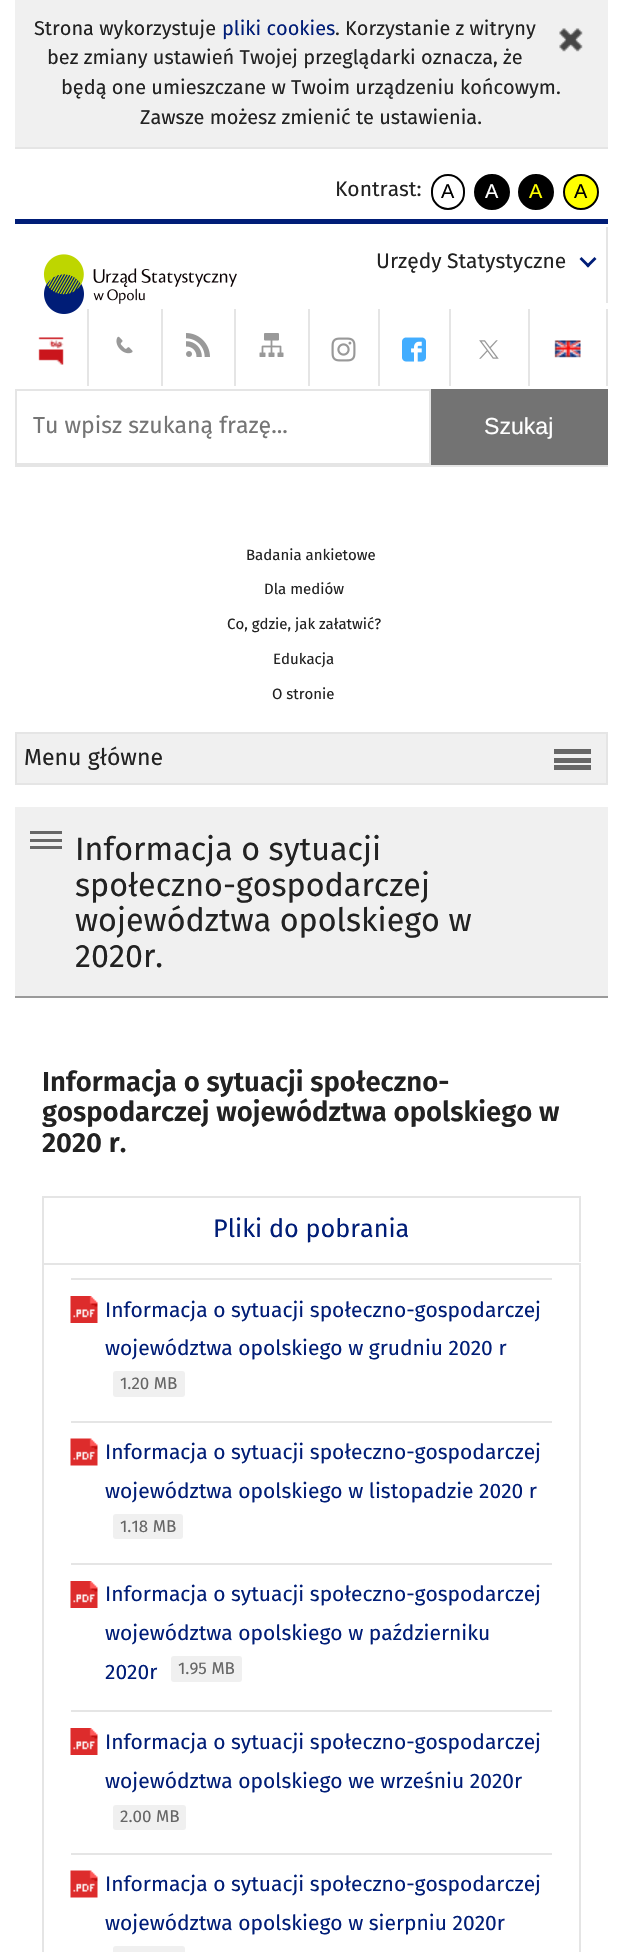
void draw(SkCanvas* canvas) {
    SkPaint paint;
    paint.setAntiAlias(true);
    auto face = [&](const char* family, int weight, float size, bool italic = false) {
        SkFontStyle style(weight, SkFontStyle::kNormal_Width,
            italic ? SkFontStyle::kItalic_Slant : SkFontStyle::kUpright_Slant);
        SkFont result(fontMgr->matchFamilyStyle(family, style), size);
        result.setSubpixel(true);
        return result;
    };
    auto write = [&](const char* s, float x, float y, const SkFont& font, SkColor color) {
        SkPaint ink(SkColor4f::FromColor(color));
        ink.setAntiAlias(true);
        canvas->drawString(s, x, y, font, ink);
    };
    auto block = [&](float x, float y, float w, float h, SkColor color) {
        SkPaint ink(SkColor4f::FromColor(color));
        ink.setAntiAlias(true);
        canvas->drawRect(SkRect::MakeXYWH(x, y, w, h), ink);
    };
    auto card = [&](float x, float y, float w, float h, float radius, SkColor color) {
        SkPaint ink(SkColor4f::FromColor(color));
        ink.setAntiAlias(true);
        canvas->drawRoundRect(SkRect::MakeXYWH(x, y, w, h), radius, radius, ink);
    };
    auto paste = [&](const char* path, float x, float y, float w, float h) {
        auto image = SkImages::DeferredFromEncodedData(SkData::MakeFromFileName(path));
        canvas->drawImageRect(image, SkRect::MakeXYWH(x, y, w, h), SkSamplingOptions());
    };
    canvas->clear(SK_ColorWHITE);
    block(15, 0, 593, 147, SkColorSetRGB(240, 240, 240));
    block(15, 147, 593, 2, SkColorSetRGB(229, 229, 229));
    auto kFont1 = face("Fira Sans", 400, 19.95f);
    write("Strona wykorzystuje", 34, 35, kFont1, SkColorSetRGB(34, 34, 34));
    write("pliki cookies", 222, 35, kFont1, SkColorSetRGB(0, 29, 119));
    write(". Korzystanie z witryny", 335, 35, kFont1, SkColorSetRGB(34, 34, 34));
    paste("pic1.png", 559, 28, 24, 24);
    write("bez zmiany ustawień Twojej przeglądarki oznacza, że", 47, 64, kFont1, SkColorSetRGB(34, 34, 34));
    write("będą one umieszczane w Twoim urządzeniu końcowym.", 61, 94, kFont1, SkColorSetRGB(34, 34, 34));
    write("Zawsze możesz zmienić te ustawienia.", 140, 124, kFont1, SkColorSetRGB(34, 34, 34));
    auto kFont2 = face("Fira Sans", 400, 21);
    write("Kontrast:", 335, 196, kFont2, SkColorSetRGB(34, 34, 34));
    paint.setStyle(SkPaint::kStroke_Style);
    paint.setStrokeWidth(2);
    paint.setColor(SK_ColorBLACK);
    canvas->drawRoundRect(SkRect::MakeXYWH(432, 175, 32, 34), 16, 16, paint);
    auto kFont3 = face("Liberation Sans", 400, 19.95f);
    write("A", 441, 198, kFont3, SK_ColorBLACK);
    paint.setStyle(SkPaint::kFill_Style);
    canvas->drawCircle(492, 192, 17, paint);
    paint.setStyle(SkPaint::kStroke_Style);
    canvas->drawCircle(492, 192, 17, paint);
    write("A", 485, 198, kFont3, SK_ColorWHITE);
    paint.setStyle(SkPaint::kFill_Style);
    canvas->drawCircle(536, 192, 17, paint);
    paint.setStyle(SkPaint::kStroke_Style);
    canvas->drawCircle(536, 192, 17, paint);
    write("A", 529, 198, kFont3, SkColorSetRGB(255, 255, 0));
    paint.setStyle(SkPaint::kFill_Style);
    paint.setColor(SkColorSetRGB(255, 255, 0));
    canvas->drawCircle(581, 192, 17, paint);
    paint.setStyle(SkPaint::kStroke_Style);
    paint.setColor(SK_ColorBLACK);
    canvas->drawCircle(581, 192, 17, paint);
    write("A", 574, 198, kFont3, SK_ColorBLACK);
    block(15, 219, 593, 5, SkColorSetRGB(0, 29, 119));
    block(15, 465, 593, 2, SkColorSetRGB(229, 229, 229));
    paste("pic2.png", 43, 254, 194, 60);
    block(606, 227, 2, 76, SkColorSetRGB(229, 229, 229));
    write("Urzędy Statystyczne", 376, 268, kFont2, SkColorSetRGB(34, 34, 34));
    paint.setStyle(SkPaint::kFill_Style);
    paint.setColor(SkColorSetRGB(0, 29, 119));
    canvas->drawPath(SkPathBuilder().moveTo(594.5f, 257).lineTo(596.5f, 259).lineTo(588, 267.5f).lineTo(586, 265.5f).close().detach(), paint);
    canvas->drawPath(SkPathBuilder().moveTo(581.5f, 257).lineTo(590, 265.5f).lineTo(588, 267.5f).lineTo(579.5f, 259).close().detach(), paint);
    block(87, 309, 2, 77, SkColorSetRGB(229, 229, 229));
    paste("pic3.png", 38, 337, 26, 28);
    block(161, 309, 2, 77, SkColorSetRGB(229, 229, 229));
    paste("pic4.png", 116, 336, 17, 18);
    block(234, 309, 2, 77, SkColorSetRGB(229, 229, 229));
    paste("pic5.png", 186, 333, 24, 24);
    block(308, 309, 2, 77, SkColorSetRGB(229, 229, 229));
    paste("pic6.png", 259, 333, 25, 24);
    block(378, 309, 2, 77, SkColorSetRGB(229, 229, 229));
    paste("pic7.png", 331, 337, 25, 25);
    block(449, 309, 2, 77, SkColorSetRGB(229, 229, 229));
    paste("pic8.png", 402, 337, 24, 25);
    block(528, 309, 2, 77, SkColorSetRGB(229, 229, 229));
    paste("pic9.png", 479, 340, 20, 19);
    block(606, 309, 2, 77, SkColorSetRGB(229, 229, 229));
    paste("pic10.png", 554, 340, 27, 18);
    paint.setStyle(SkPaint::kStroke_Style);
    paint.setColor(SkColorSetRGB(229, 229, 229));
    canvas->drawRect(SkRect::MakeXYWH(16, 390, 414, 74), paint);
    auto kFont4 = face("Fira Sans", 400, 23.1f);
    write("Tu wpisz szukaną frazę...", 33, 433, kFont4, SkColorSetRGB(117, 117, 117));
    block(431, 389, 177, 76, SkColorSetRGB(115, 115, 115));
    auto kFont5 = face("Liberation Sans", 400, 23.1f);
    write("Szukaj", 484, 434, kFont5, SK_ColorWHITE);
    auto kFont6 = face("Fira Sans", 400, 15);
    write("Badania ankietowe", 246, 560, kFont6, SkColorSetRGB(34, 34, 34));
    write("Dla mediów", 264, 594, kFont6, SkColorSetRGB(34, 34, 34));
    write("Co, gdzie, jak załatwić?", 227, 629, kFont6, SkColorSetRGB(34, 34, 34));
    write("Edukacja", 273, 664, kFont6, SkColorSetRGB(34, 34, 34));
    write("O stronie", 272, 699, kFont6, SkColorSetRGB(34, 34, 34));
    paint.setStyle(SkPaint::kFill_Style);
    paint.setColor(SkColorSetRGB(240, 240, 240));
    canvas->drawRect(SkRect::MakeXYWH(16, 733, 591, 51), paint);
    paint.setStyle(SkPaint::kStroke_Style);
    paint.setColor(SkColorSetRGB(229, 229, 229));
    canvas->drawRect(SkRect::MakeXYWH(16, 733, 591, 51), paint);
    write("Menu główne", 24, 765, kFont4, SkColorSetRGB(34, 34, 34));
    block(554, 765, 37, 5, SkColorSetRGB(102, 102, 102));
    block(554, 758, 37, 5, SkColorSetRGB(102, 102, 102));
    block(554, 749, 37, 5, SkColorSetRGB(102, 102, 102));
    block(15, 807, 593, 189, SkColorSetRGB(240, 240, 240));
    block(15, 996, 593, 2, SkColorSetRGB(154, 154, 154));
    block(30, 846, 32, 3, SkColorSetRGB(102, 102, 102));
    block(30, 839, 32, 3, SkColorSetRGB(102, 102, 102));
    block(30, 831, 32, 3, SkColorSetRGB(102, 102, 102));
    auto kFont7 = face("Fira Sans", 400, 32.25f);
    write("Informacja o sytuacji", 75, 860, kFont7, SkColorSetRGB(34, 34, 34));
    write("społeczno-gospodarczej", 75, 896, kFont7, SkColorSetRGB(34, 34, 34));
    write("województwa opolskiego w", 75, 931, kFont7, SkColorSetRGB(34, 34, 34));
    write("2020r.", 75, 967, kFont7, SkColorSetRGB(34, 34, 34));
    auto kFont8 = face("Fira Sans", 600, 27.5f);
    write("Informacja o sytuacji społeczno-", 42, 1091, kFont8, SkColorSetRGB(34, 34, 34));
    write("gospodarczej województwa opolskiego w", 42, 1121, kFont8, SkColorSetRGB(34, 34, 34));
    write("2020 r.", 42, 1152, kFont8, SkColorSetRGB(34, 34, 34));
    block(42, 1196, 539, 2, SkColorSetRGB(229, 229, 229));
    block(579, 1196, 2, 67, SkColorSetRGB(229, 229, 229));
    block(579, 1262, 2, 1, SK_ColorWHITE);
    block(42, 1196, 2, 67, SkColorSetRGB(229, 229, 229));
    auto kFont9 = face("Fira Sans", 400, 25.25f);
    write("Pliki do pobrania", 213, 1237, kFont9, SkColorSetRGB(0, 29, 119));
    canvas->drawRect(SkRect::MakeXYWH(43, 1264, 537, 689), paint);
    block(71, 1278, 481, 2, SkColorSetRGB(229, 229, 229));
    paste("pic11.png", 70, 1296, 28, 27);
    write("Informacja o sytuacji społeczno-gospodarczej", 105, 1317, kFont2, SkColorSetRGB(0, 29, 119));
    write("województwa opolskiego w grudniu 2020 r", 105, 1355, kFont2, SkColorSetRGB(0, 29, 119));
    card(113, 1371, 72, 26, 3, SkColorSetRGB(240, 240, 240));
    auto kFont10 = face("Fira Sans", 400, 17);
    write("1.20 MB", 120, 1389, kFont10, SkColorSetRGB(102, 102, 102));
    block(71, 1421, 481, 2, SkColorSetRGB(229, 229, 229));
    paste("pic12.png", 70, 1438, 28, 28);
    write("Informacja o sytuacji społeczno-gospodarczej", 105, 1459, kFont2, SkColorSetRGB(0, 29, 119));
    write("województwa opolskiego w listopadzie 2020 r", 105, 1498, kFont2, SkColorSetRGB(0, 29, 119));
    card(113, 1514, 70, 25, 3, SkColorSetRGB(240, 240, 240));
    write("1.18 MB", 120, 1532, kFont10, SkColorSetRGB(102, 102, 102));
    block(71, 1563, 481, 2, SkColorSetRGB(229, 229, 229));
    paste("pic11.png", 70, 1581, 28, 27);
    write("Informacja o sytuacji społeczno-gospodarczej", 105, 1601, kFont2, SkColorSetRGB(0, 29, 119));
    write("województwa opolskiego w październiku", 105, 1640, kFont2, SkColorSetRGB(0, 29, 119));
    write("2020r", 105, 1679, kFont2, SkColorSetRGB(0, 29, 119));
    card(171, 1656, 71, 26, 3, SkColorSetRGB(240, 240, 240));
    write("1.95 MB", 178, 1674, kFont10, SkColorSetRGB(102, 102, 102));
    block(71, 1710, 481, 2, SkColorSetRGB(229, 229, 229));
    paste("pic11.png", 70, 1728, 28, 27);
    write("Informacja o sytuacji społeczno-gospodarczej", 105, 1749, kFont2, SkColorSetRGB(0, 29, 119));
    write("województwa opolskiego we wrześniu 2020r", 105, 1788, kFont2, SkColorSetRGB(0, 29, 119));
    card(113, 1805, 73, 25, 3, SkColorSetRGB(240, 240, 240));
    write("2.00 MB", 120, 1822, kFont10, SkColorSetRGB(102, 102, 102));
    block(71, 1853, 481, 2, SkColorSetRGB(229, 229, 229));
    paste("pic12.png", 70, 1870, 28, 28);
    write("Informacja o sytuacji społeczno-gospodarczej", 105, 1891, kFont2, SkColorSetRGB(0, 29, 119));
    write("województwa opolskiego w sierpniu 2020r", 105, 1930, kFont2, SkColorSetRGB(0, 29, 119));
    card(113, 1946, 72, 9, 3, SkColorSetRGB(240, 240, 240));
}
